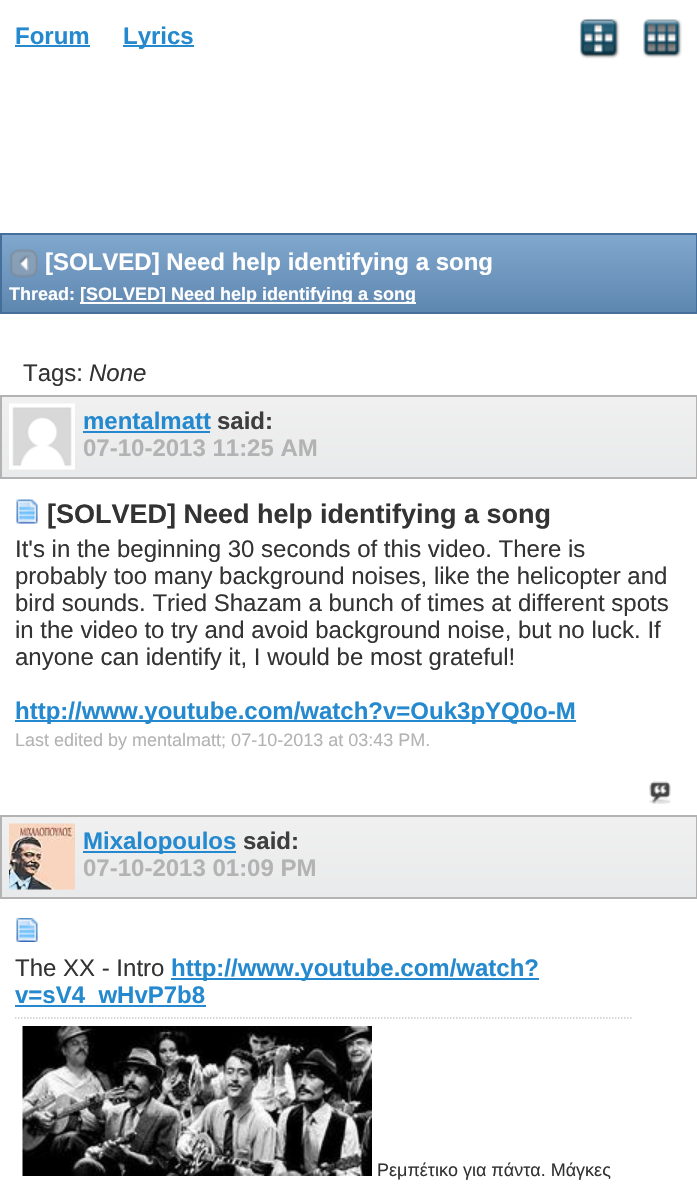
void draw(SkCanvas* canvas) {
    SkPaint paint;
    paint.setAntiAlias(true);
    auto face = [&](const char* family, int weight, float size, bool italic = false) {
        SkFontStyle style(weight, SkFontStyle::kNormal_Width,
            italic ? SkFontStyle::kItalic_Slant : SkFontStyle::kUpright_Slant);
        SkFont result(fontMgr->matchFamilyStyle(family, style), size);
        result.setSubpixel(true);
        return result;
    };
    auto write = [&](const char* s, float x, float y, const SkFont& font, SkColor color) {
        SkPaint ink(SkColor4f::FromColor(color));
        ink.setAntiAlias(true);
        canvas->drawString(s, x, y, font, ink);
    };
    auto block = [&](float x, float y, float w, float h, SkColor color) {
        SkPaint ink(SkColor4f::FromColor(color));
        ink.setAntiAlias(true);
        canvas->drawRect(SkRect::MakeXYWH(x, y, w, h), ink);
    };
    auto paste = [&](const char* path, float x, float y, float w, float h) {
        auto image = SkImages::DeferredFromEncodedData(SkData::MakeFromFileName(path));
        canvas->drawImageRect(image, SkRect::MakeXYWH(x, y, w, h), SkSamplingOptions());
    };
    canvas->clear(SK_ColorWHITE);
    auto kFont1 = face("Liberation Sans", 700, 24);
    write("Forum", 15, 44, kFont1, SkColorSetRGB(36, 137, 206));
    block(15, 45, 75, 2, SkColorSetRGB(36, 137, 206));
    block(123, 45, 71, 2, SkColorSetRGB(36, 137, 206));
    write("Lyrics", 123, 44, kFont1, SkColorSetRGB(36, 137, 206));
    paste("pic1.png", 579, 18, 41, 41);
    paste("pic2.png", 643, 19, 39, 39);
    {
        const SkColor colors[] = {SkColorSetRGB(129, 168, 206), SkColorSetRGB(94, 135, 176)};
        const float stops[] = {0, 1};
        const SkPoint ends[] = {{349, 234}, {349, 312}};
        paint.setShader(SkGradientShader::MakeLinear(ends, colors, stops, 2, SkTileMode::kClamp));
        paint.setAlpha(255);
    }
    canvas->drawRect(SkRect::MakeXYWH(2, 235, 694, 77), paint);
    paint.setStyle(SkPaint::kStroke_Style);
    paint.setStrokeWidth(2);
    paint.setShader(nullptr);
    paint.setColor(SkColorSetRGB(69, 111, 154));
    canvas->drawRect(SkRect::MakeXYWH(1, 234, 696, 79), paint);
    paste("pic3.png", 9, 249, 29, 29);
    write("[SOLVED] Need help identifying a song", 45, 270, kFont1, SK_ColorWHITE);
    auto kFont2 = face("Liberation Sans", 700, 18);
    write("Thread:", 9, 300, kFont2, SK_ColorWHITE);
    block(80, 302, 336, 2, SK_ColorWHITE);
    write("[SOLVED] Need help identifying a song", 80, 300, kFont2, SK_ColorWHITE);
    auto kFont3 = face("Liberation Sans", 400, 24);
    write("Tags:", 23, 381, kFont3, SkColorSetRGB(51, 51, 51));
    auto kFont4 = face("Liberation Sans", 400, 24, true);
    write("None", 89, 381, kFont4, SkColorSetRGB(51, 51, 51));
    paint.setStyle(SkPaint::kFill_Style);
    {
        const SkColor colors[] = {SkColorSetRGB(240, 240, 240), SkColorSetRGB(233, 234, 235)};
        const float stops[] = {0, 1};
        const SkPoint ends[] = {{349, 396}, {349, 477}};
        paint.setShader(SkGradientShader::MakeLinear(ends, colors, stops, 2, SkTileMode::kClamp));
        paint.setAlpha(255);
    }
    canvas->drawRect(SkRect::MakeXYWH(2, 397, 694, 80), paint);
    paint.setStyle(SkPaint::kStroke_Style);
    paint.setShader(nullptr);
    paint.setColor(SkColorSetRGB(179, 179, 179));
    canvas->drawRect(SkRect::MakeXYWH(1, 396, 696, 82), paint);
    paste("pic4.png", 9, 403, 66, 67);
    write("mentalmatt", 83, 429, kFont1, SkColorSetRGB(36, 137, 206));
    block(83, 431, 127, 2, SkColorSetRGB(36, 137, 206));
    write("said:", 217, 429, kFont1, SkColorSetRGB(62, 62, 62));
    write("07-10-2013 11:25 AM", 83, 456, kFont1, SkColorSetRGB(179, 179, 179));
    paste("pic5.png", 16, 499, 22, 25);
    auto kFont5 = face("Liberation Sans", 700, 27);
    write("[SOLVED] Need help identifying a song", 47, 523, kFont5, SkColorSetRGB(51, 51, 51));
    write("It's in the beginning 30 seconds of this video. There is", 15, 557, kFont3, SkColorSetRGB(51, 51, 51));
    write("probably too many background noises, like the helicopter and", 15, 584, kFont3, SkColorSetRGB(51, 51, 51));
    write("bird sounds. Tried Shazam a bunch of times at different spots", 15, 611, kFont3, SkColorSetRGB(51, 51, 51));
    write("in the video to try and avoid background noise, but no luck. If", 15, 638, kFont3, SkColorSetRGB(51, 51, 51));
    write("anyone can identify it, I would be most grateful!", 15, 665, kFont3, SkColorSetRGB(51, 51, 51));
    block(15, 720, 561, 2, SkColorSetRGB(36, 137, 206));
    write("http://www.youtube.com/watch?v=Ouk3pYQ0o-M", 15, 719, kFont1, SkColorSetRGB(36, 137, 206));
    auto kFont6 = face("Liberation Sans", 400, 18);
    write("Last edited by mentalmatt; 07-10-2013 at 03:43 PM.", 15, 746, kFont6, SkColorSetRGB(179, 179, 179));
    paste("pic6.png", 649, 781, 22, 23);
    paint.setStyle(SkPaint::kFill_Style);
    {
        const SkColor colors[] = {SkColorSetRGB(240, 240, 240), SkColorSetRGB(233, 234, 235)};
        const float stops[] = {0, 1};
        const SkPoint ends[] = {{349, 816}, {349, 897}};
        paint.setShader(SkGradientShader::MakeLinear(ends, colors, stops, 2, SkTileMode::kClamp));
        paint.setAlpha(255);
    }
    canvas->drawRect(SkRect::MakeXYWH(2, 817, 694, 80), paint);
    paint.setStyle(SkPaint::kStroke_Style);
    paint.setShader(nullptr);
    paint.setColor(SkColorSetRGB(179, 179, 179));
    canvas->drawRect(SkRect::MakeXYWH(1, 816, 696, 82), paint);
    paste("pic7.png", 9, 823, 66, 67);
    block(83, 851, 153, 2, SkColorSetRGB(36, 137, 206));
    write("Mixalopoulos", 83, 849, kFont1, SkColorSetRGB(36, 137, 206));
    write("said:", 243, 849, kFont1, SkColorSetRGB(62, 62, 62));
    write("07-10-2013 01:09 PM", 83, 876, kFont1, SkColorSetRGB(179, 179, 179));
    paste("pic8.png", 16, 918, 22, 24);
    write("The XX - Intro", 15, 976, kFont3, SkColorSetRGB(51, 51, 51));
    block(171, 978, 368, 2, SkColorSetRGB(36, 137, 206));
    write("http://www.youtube.com/watch?", 171, 976, kFont1, SkColorSetRGB(36, 137, 206));
    block(15, 1005, 191, 2, SkColorSetRGB(36, 137, 206));
    write("v=sV4_wHvP7b8", 15, 1003, kFont1, SkColorSetRGB(36, 137, 206));
    paint.setStrokeWidth(1.5f);
    paint.setColor(SkColorSetRGB(204, 204, 204));
    paint.setPathEffect(SkDashPathEffect::Make({{1.5f, 1.5f}}, 0));
    canvas->drawPath(SkPathBuilder().moveTo(15, 1018).lineTo(631.5f, 1018).detach(), paint);
    paint.setPathEffect(nullptr);
    paste("pic9.png", 22, 1026, 350, 150);
    write("Ρεμπέτικο για πάντα. Μάγκες", 377, 1176, kFont6, SkColorSetRGB(51, 51, 51));
}
